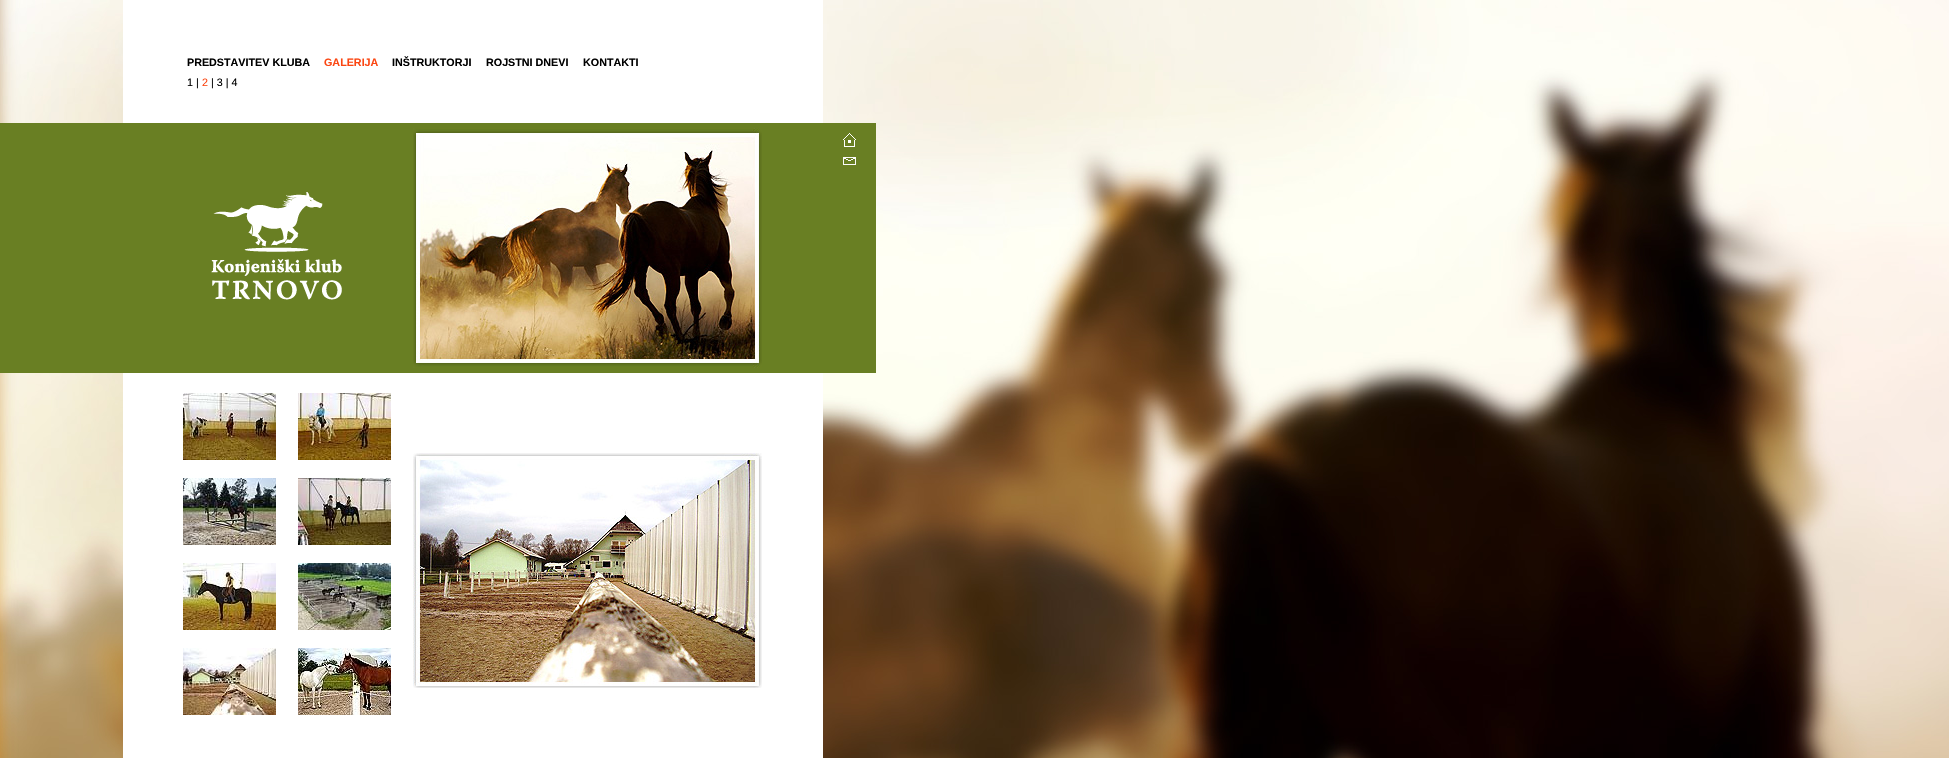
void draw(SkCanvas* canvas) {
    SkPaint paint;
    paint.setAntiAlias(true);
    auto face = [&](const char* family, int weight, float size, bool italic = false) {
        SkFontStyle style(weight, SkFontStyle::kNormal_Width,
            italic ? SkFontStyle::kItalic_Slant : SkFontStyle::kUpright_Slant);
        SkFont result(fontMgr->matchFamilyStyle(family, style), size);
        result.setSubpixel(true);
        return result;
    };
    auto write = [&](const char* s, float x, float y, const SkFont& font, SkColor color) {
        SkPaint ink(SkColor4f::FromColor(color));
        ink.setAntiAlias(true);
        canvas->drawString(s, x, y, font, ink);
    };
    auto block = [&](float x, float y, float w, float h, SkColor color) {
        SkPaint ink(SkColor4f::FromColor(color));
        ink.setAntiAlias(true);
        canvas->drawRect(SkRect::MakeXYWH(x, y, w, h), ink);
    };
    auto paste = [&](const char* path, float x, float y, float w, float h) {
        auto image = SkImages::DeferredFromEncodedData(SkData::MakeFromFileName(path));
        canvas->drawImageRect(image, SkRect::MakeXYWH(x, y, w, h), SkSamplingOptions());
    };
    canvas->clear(SK_ColorWHITE);
    paste("pic1.png", 0, 0, 1949, 758);
    block(123, 0, 700, 123, SK_ColorWHITE);
    auto kFont1 = face("Liberation Sans", 700, 10.75f);
    write("PREDSTAVITEV KLUBA", 187, 66, kFont1, SK_ColorBLACK);
    write("GALERIJA", 324, 66, kFont1, SkColorSetRGB(251, 70, 18));
    write("INŠTRUKTORJI", 392, 66, kFont1, SK_ColorBLACK);
    write("ROJSTNI DNEVI", 486, 66, kFont1, SK_ColorBLACK);
    write("KONTAKTI", 583, 66, kFont1, SK_ColorBLACK);
    auto kFont2 = face("Liberation Sans", 400, 10.75f);
    write("1 |", 187, 86, kFont2, SK_ColorBLACK);
    write("2", 202, 86, kFont2, SkColorSetRGB(251, 70, 18));
    write("| 3 | 4", 211, 86, kFont2, SK_ColorBLACK);
    block(0, 123, 876, 250, SkColorSetRGB(105, 127, 35));
    paste("pic2.png", 211, 192, 131, 108);
    paste("pic3.png", 413, 128, 349, 240);
    paste("pic4.png", 843, 133, 13, 14);
    paste("pic5.png", 843, 157, 13, 8);
    block(123, 373, 700, 385, SK_ColorWHITE);
    paste("pic6.png", 183, 393, 93, 67);
    paste("pic7.png", 183, 478, 93, 67);
    paste("pic8.png", 183, 563, 93, 67);
    paste("pic9.png", 183, 648, 93, 67);
    paste("pic10.png", 298, 393, 93, 67);
    paste("pic11.png", 298, 478, 93, 67);
    paste("pic12.png", 298, 563, 93, 67);
    paste("pic13.png", 298, 648, 93, 67);
    paste("pic14.png", 413, 453, 349, 235);
}
